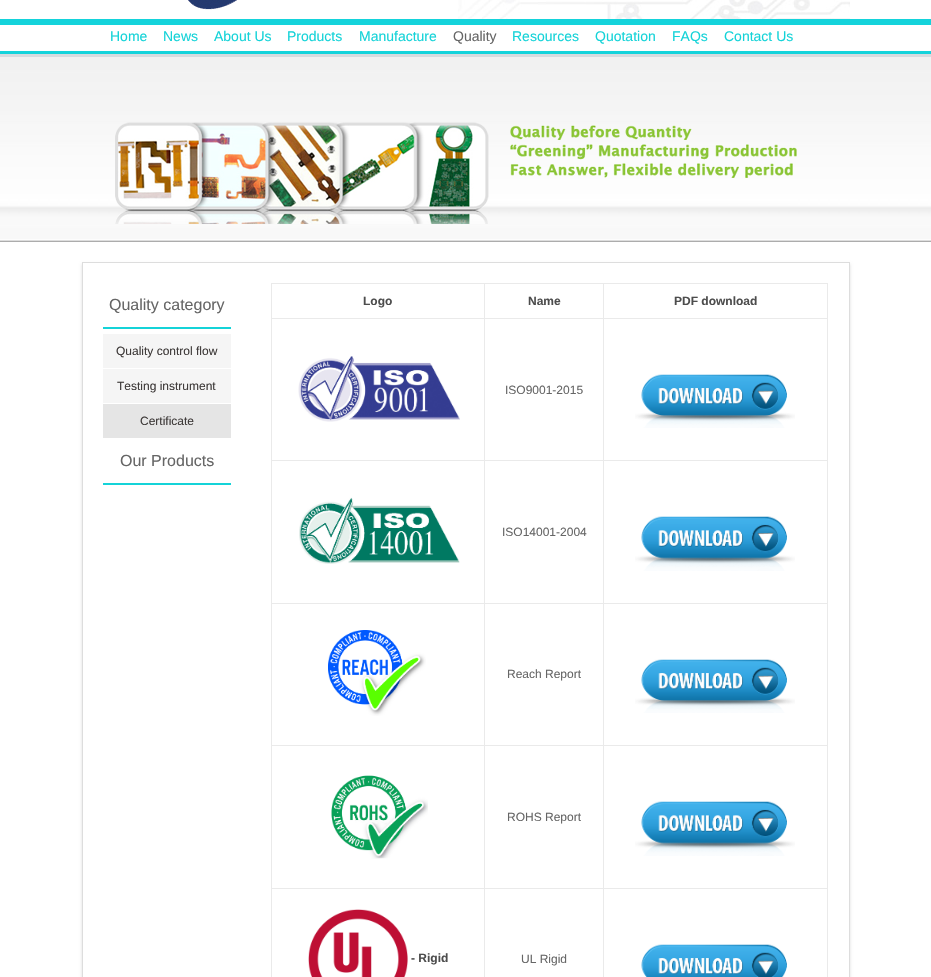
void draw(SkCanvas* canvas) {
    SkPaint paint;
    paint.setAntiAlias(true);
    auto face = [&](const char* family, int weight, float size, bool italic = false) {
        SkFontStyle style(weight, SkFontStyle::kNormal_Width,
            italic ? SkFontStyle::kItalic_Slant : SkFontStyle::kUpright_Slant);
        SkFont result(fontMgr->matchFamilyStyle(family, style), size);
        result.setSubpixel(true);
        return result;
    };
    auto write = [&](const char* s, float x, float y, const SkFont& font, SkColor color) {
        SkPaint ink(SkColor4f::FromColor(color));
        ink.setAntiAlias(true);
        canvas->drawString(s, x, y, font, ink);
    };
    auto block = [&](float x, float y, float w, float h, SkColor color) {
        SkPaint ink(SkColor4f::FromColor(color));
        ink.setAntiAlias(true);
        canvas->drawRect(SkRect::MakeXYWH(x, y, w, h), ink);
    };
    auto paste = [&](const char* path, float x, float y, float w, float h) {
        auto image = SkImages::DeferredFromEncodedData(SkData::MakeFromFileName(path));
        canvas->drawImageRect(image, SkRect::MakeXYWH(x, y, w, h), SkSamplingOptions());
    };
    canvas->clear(SK_ColorWHITE);
    paste("pic1.png", 458, 0, 392, 19);
    paste("pic2.png", 188, 0, 49, 10);
    paste("pic3.png", 0, 19, 931, 38);
    auto kFont1 = face("Liberation Sans", 400, 14);
    write("Home", 110, 41, kFont1, SkColorSetRGB(20, 211, 216));
    write("News", 163, 41, kFont1, SkColorSetRGB(20, 211, 216));
    write("About Us", 214, 41, kFont1, SkColorSetRGB(20, 211, 216));
    write("Products", 287, 41, kFont1, SkColorSetRGB(20, 211, 216));
    write("Manufacture", 359, 41, kFont1, SkColorSetRGB(20, 211, 216));
    write("Quality", 453, 41, kFont1, SkColorSetRGB(102, 102, 102));
    write("Resources", 512, 41, kFont1, SkColorSetRGB(20, 211, 216));
    write("Quotation", 595, 41, kFont1, SkColorSetRGB(20, 211, 216));
    write("FAQs", 672, 41, kFont1, SkColorSetRGB(20, 211, 216));
    write("Contact Us", 724, 41, kFont1, SkColorSetRGB(20, 211, 216));
    paste("pic4.png", 0, 57, 931, 185);
    paste("pic5.png", 115, 122, 682, 102);
    canvas->save();
    canvas->clipPath(SkPathBuilder(SkPathFillType::kEvenOdd).moveTo(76, 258).lineTo(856, 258).lineTo(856, 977).lineTo(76, 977).close().moveTo(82, 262).lineTo(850, 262).lineTo(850, 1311).lineTo(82, 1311).close().detach(), true);
    paint.setColor(SkColorSetRGB(221, 221, 221));
    paint.setMaskFilter(SkMaskFilter::MakeBlur(kNormal_SkBlurStyle, 1.5f));
    canvas->drawRect(SkRect::MakeXYWH(82, 264, 768, 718), paint);
    paint.setMaskFilter(nullptr);
    canvas->restore();
    paint.setStyle(SkPaint::kStroke_Style);
    paint.setStrokeWidth(1);
    canvas->drawRect(SkRect::MakeXYWH(82.5f, 262.5f, 767, 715), paint);
    block(103, 327, 128, 2, SkColorSetRGB(20, 211, 216));
    auto kFont2 = face("Liberation Sans", 400, 16);
    write("Quality category", 109, 310, kFont2, SkColorSetRGB(102, 102, 102));
    block(103, 334, 128, 34, SkColorSetRGB(245, 245, 245));
    auto kFont3 = face("Liberation Sans", 400, 12);
    write("Quality control flow", 116, 355, kFont3, SkColorSetRGB(62, 58, 57));
    block(103, 369, 128, 34, SkColorSetRGB(245, 245, 245));
    write("Testing instrument", 117, 390, kFont3, SkColorSetRGB(62, 58, 57));
    block(103, 404, 128, 34, SkColorSetRGB(229, 229, 229));
    write("Certificate", 140, 425, kFont3, SkColorSetRGB(62, 58, 57));
    block(103, 483, 128, 2, SkColorSetRGB(20, 211, 216));
    write("Our Products", 120, 466, kFont2, SkColorSetRGB(102, 102, 102));
    block(271, 283, 557, 1, SkColorSetRGB(234, 234, 234));
    block(827, 283, 1, 694, SkColorSetRGB(234, 234, 234));
    block(271, 283, 1, 694, SkColorSetRGB(234, 234, 234));
    auto kFont4 = face("Liberation Sans", 700, 12);
    write("Logo", 363, 305, kFont4, SkColorSetRGB(77, 77, 77));
    block(603, 318, 225, 1, SkColorSetRGB(234, 234, 234));
    block(603, 460, 225, 1, SkColorSetRGB(234, 234, 234));
    block(603, 603, 225, 1, SkColorSetRGB(234, 234, 234));
    block(603, 745, 225, 1, SkColorSetRGB(234, 234, 234));
    block(603, 888, 225, 1, SkColorSetRGB(234, 234, 234));
    block(603, 888, 1, 89, SkColorSetRGB(234, 234, 234));
    block(484, 888, 120, 1, SkColorSetRGB(234, 234, 234));
    block(603, 745, 1, 144, SkColorSetRGB(234, 234, 234));
    block(484, 745, 120, 1, SkColorSetRGB(234, 234, 234));
    block(603, 603, 1, 143, SkColorSetRGB(234, 234, 234));
    block(484, 603, 120, 1, SkColorSetRGB(234, 234, 234));
    block(603, 460, 1, 144, SkColorSetRGB(234, 234, 234));
    block(484, 460, 120, 1, SkColorSetRGB(234, 234, 234));
    block(603, 318, 1, 143, SkColorSetRGB(234, 234, 234));
    block(484, 318, 120, 1, SkColorSetRGB(234, 234, 234));
    block(484, 888, 1, 89, SkColorSetRGB(234, 234, 234));
    block(271, 888, 214, 1, SkColorSetRGB(234, 234, 234));
    block(484, 745, 1, 144, SkColorSetRGB(234, 234, 234));
    block(271, 745, 214, 1, SkColorSetRGB(234, 234, 234));
    block(484, 603, 1, 143, SkColorSetRGB(234, 234, 234));
    block(271, 603, 214, 1, SkColorSetRGB(234, 234, 234));
    block(484, 460, 1, 144, SkColorSetRGB(234, 234, 234));
    block(271, 460, 214, 1, SkColorSetRGB(234, 234, 234));
    block(484, 318, 1, 143, SkColorSetRGB(234, 234, 234));
    block(271, 318, 214, 1, SkColorSetRGB(234, 234, 234));
    block(484, 283, 1, 36, SkColorSetRGB(234, 234, 234));
    write("Name", 528, 305, kFont4, SkColorSetRGB(77, 77, 77));
    block(603, 283, 1, 36, SkColorSetRGB(234, 234, 234));
    write("PDF download", 674, 305, kFont4, SkColorSetRGB(77, 77, 77));
    paste("pic6.png", 298, 356, 162, 66);
    write("ISO9001-2015", 505, 394, kFont3, SkColorSetRGB(102, 102, 102));
    paste("pic7.png", 635, 374, 160, 54);
    paste("pic8.png", 299, 497, 161, 67);
    write("ISO14001-2004", 502, 536, kFont3, SkColorSetRGB(102, 102, 102));
    paste("pic9.png", 635, 516, 160, 55);
    paste("pic10.png", 328, 630, 98, 86);
    write("Reach Report", 507, 678, kFont3, SkColorSetRGB(102, 102, 102));
    paste("pic11.png", 635, 659, 160, 54);
    paste("pic12.png", 331, 775, 97, 84);
    write("ROHS Report", 507, 821, kFont3, SkColorSetRGB(102, 102, 102));
    paste("pic9.png", 635, 801, 160, 55);
    paste("pic13.png", 308, 909, 100, 68);
    write("- Rigid", 411, 962, kFont4, SkColorSetRGB(77, 77, 77));
    write("UL Rigid", 521, 963, kFont3, SkColorSetRGB(102, 102, 102));
    paste("pic14.png", 641, 944, 146, 33);
}
